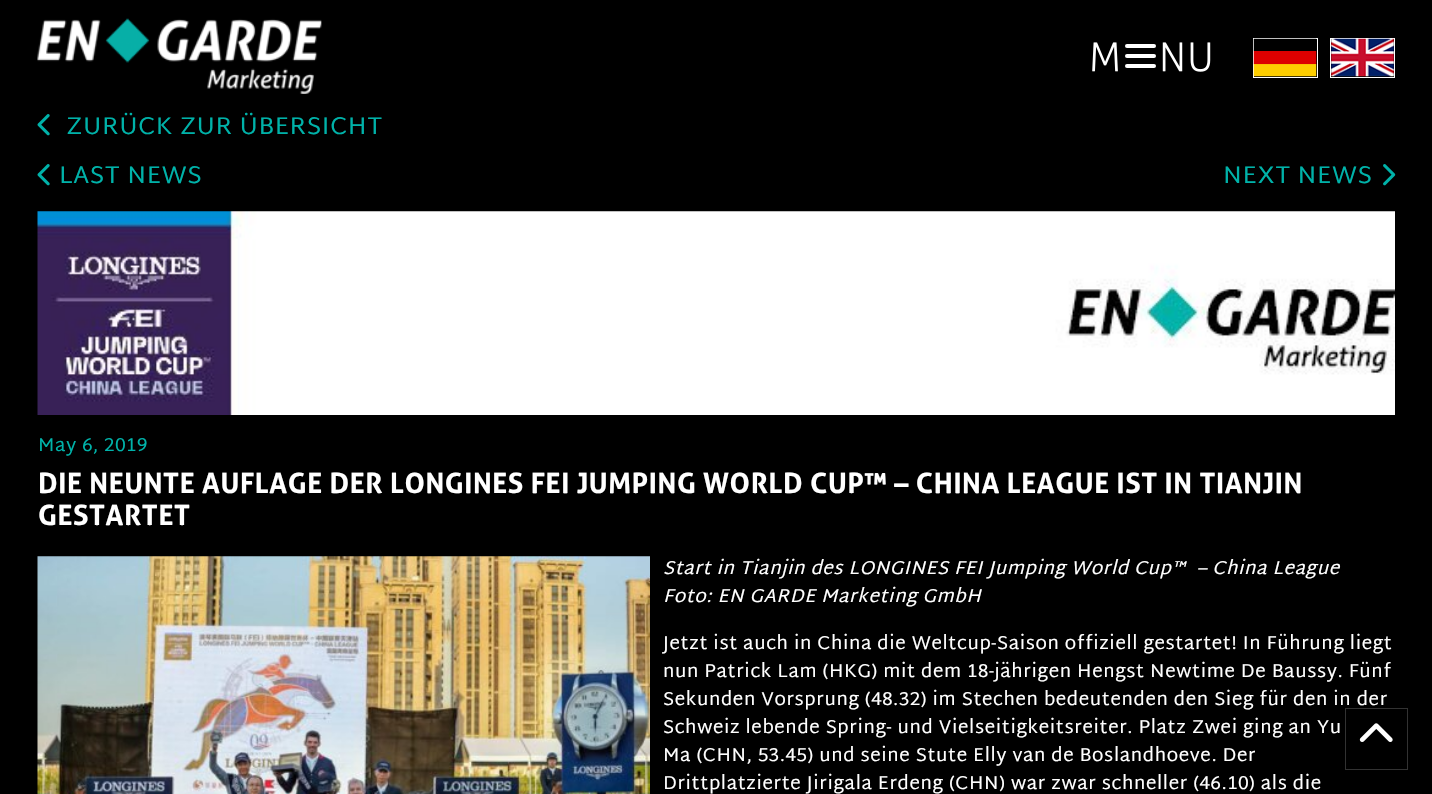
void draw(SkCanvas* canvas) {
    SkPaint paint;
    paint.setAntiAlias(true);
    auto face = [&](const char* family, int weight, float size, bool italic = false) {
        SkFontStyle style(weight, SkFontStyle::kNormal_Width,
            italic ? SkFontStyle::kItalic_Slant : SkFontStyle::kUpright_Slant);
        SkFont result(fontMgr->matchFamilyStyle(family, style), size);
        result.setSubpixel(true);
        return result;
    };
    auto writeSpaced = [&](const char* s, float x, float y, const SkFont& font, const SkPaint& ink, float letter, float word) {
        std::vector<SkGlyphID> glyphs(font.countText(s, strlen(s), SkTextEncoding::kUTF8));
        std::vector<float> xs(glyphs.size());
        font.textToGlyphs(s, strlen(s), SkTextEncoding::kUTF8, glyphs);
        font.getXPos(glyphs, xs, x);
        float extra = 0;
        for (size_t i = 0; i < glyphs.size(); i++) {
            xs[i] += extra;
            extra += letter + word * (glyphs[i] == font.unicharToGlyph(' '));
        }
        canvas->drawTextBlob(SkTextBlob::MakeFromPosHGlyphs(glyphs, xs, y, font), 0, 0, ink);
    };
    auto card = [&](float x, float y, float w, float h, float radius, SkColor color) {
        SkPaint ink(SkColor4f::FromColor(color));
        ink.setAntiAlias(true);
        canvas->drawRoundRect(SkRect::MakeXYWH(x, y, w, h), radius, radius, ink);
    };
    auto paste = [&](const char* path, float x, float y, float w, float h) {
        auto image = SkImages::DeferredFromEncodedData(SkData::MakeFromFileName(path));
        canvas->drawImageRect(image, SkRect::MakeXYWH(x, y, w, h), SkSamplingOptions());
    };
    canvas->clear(SK_ColorBLACK);
    paste("pic1.png", 37, 18, 285, 76);
    paste("pic2.png", 1092, 42, 26, 30);
    card(1125, 44, 31, 4, 2, SK_ColorWHITE);
    card(1125, 54, 31, 4, 2, SK_ColorWHITE);
    card(1125, 64, 31, 4, 2, SK_ColorWHITE);
    paste("pic3.png", 1162, 42, 49, 30);
    paint.setStyle(SkPaint::kStroke_Style);
    paint.setStrokeWidth(1);
    paint.setColor(SK_ColorWHITE);
    canvas->drawRect(SkRect::MakeXYWH(1253.5f, 38.5f, 64, 39), paint);
    paste("pic4.png", 1253, 38, 64, 39);
    canvas->drawRect(SkRect::MakeXYWH(1330.5f, 38.5f, 64, 39), paint);
    paste("pic5.png", 1331, 38, 63, 39);
    paste("pic6.png", 37, 114, 13, 22);
    auto kFont1 = face("Martel Sans", 400, 24.4f);
    paint.setStyle(SkPaint::kFill_Style);
    paint.setColor(SkColorSetRGB(0, 178, 169));
    writeSpaced("ZURÜCK ZUR ÜBERSICHT", 66, 134, kFont1, paint, 0.62f, 0);
    paste("pic6.png", 37, 164, 13, 22);
    writeSpaced("LAST NEWS", 59, 183, kFont1, paint, 0.62f, 0);
    writeSpaced("NEXT NEWS", 1223, 183, kFont1, paint, 0.62f, 0);
    paste("pic7.png", 1383, 164, 13, 22);
    paste("pic8.png", 37, 211, 1358, 204);
    auto kFont2 = face("Martel Sans", 400, 18.75f);
    writeSpaced("May 6, 2019", 38, 451, kFont2, paint, 0.62f, 0);
    auto kFont3 = face("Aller", 700, 28.1f);
    paint.setColor(SK_ColorWHITE);
    writeSpaced("DIE NEUNTE AUFLAGE DER LONGINES FEI JUMPING WORLD CUP™ – CHINA LEAGUE IST IN TIANJIN", 38, 493, kFont3, paint, 0.62f, 0);
    writeSpaced("GESTARTET", 38, 525, kFont3, paint, 0.62f, 0);
    paste("pic9.png", 37, 556, 613, 238);
    auto kFont4 = face("Martel Sans", 400, 18.75f, true);
    writeSpaced("Start in Tianjin des LONGINES FEI Jumping World Cup™  – China League", 663, 574, kFont4, paint, 0.62f, 0);
    writeSpaced("Foto: EN GARDE Marketing GmbH", 663, 602, kFont4, paint, 0.62f, 0);
    writeSpaced("Jetzt ist auch in China die Weltcup-Saison offiziell gestartet! In Führung liegt", 663, 649, kFont2, paint, 0.62f, 0);
    writeSpaced("nun Patrick Lam (HKG) mit dem 18-jährigen Hengst Newtime De Baussy. Fünf", 663, 677, kFont2, paint, 0.62f, 0);
    writeSpaced("Sekunden Vorsprung (48.32) im Stechen bedeutenden den Sieg für den in der", 663, 705, kFont2, paint, 0.62f, 0);
    writeSpaced("Schweiz lebende Spring- und Vielseitigkeitsreiter. Platz Zwei ging an Yu", 663, 733, kFont2, paint, 0.62f, 0);
    writeSpaced("Ma (CHN, 53.45) und seine Stute Elly van de Boslandhoeve. Der", 663, 761, kFont2, paint, 0.62f, 0);
    writeSpaced("Drittplatzierte Jirigala Erdeng (CHN) war zwar schneller (46.10) als die", 663, 789, kFont2, paint, 0.62f, 0);
    paint.setStyle(SkPaint::kStroke_Style);
    paint.setColor(SkColorSetRGB(50, 50, 50));
    canvas->drawRect(SkRect::MakeXYWH(1345.5f, 708.5f, 62, 61), paint);
    paste("pic10.png", 1359, 723, 34, 19);
}
